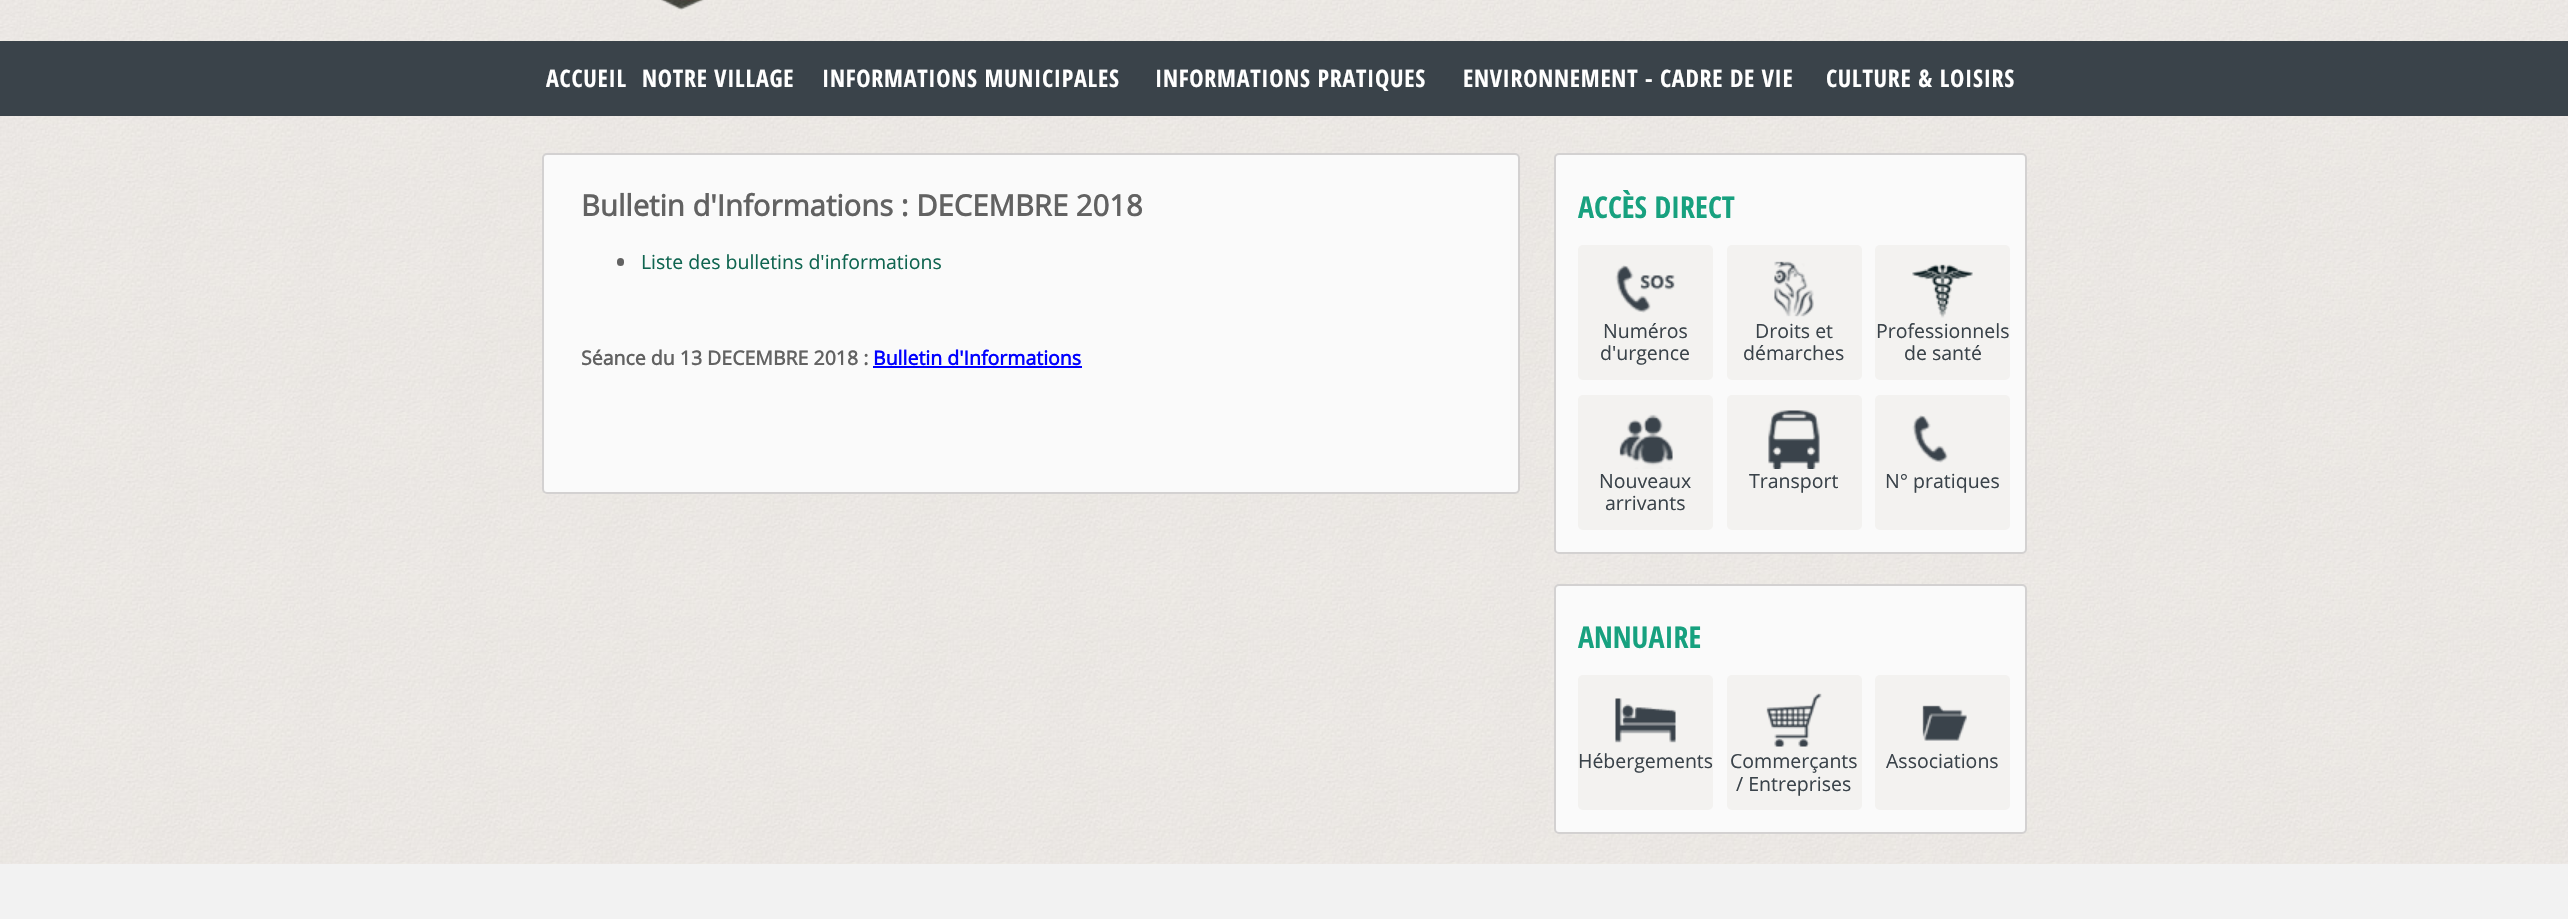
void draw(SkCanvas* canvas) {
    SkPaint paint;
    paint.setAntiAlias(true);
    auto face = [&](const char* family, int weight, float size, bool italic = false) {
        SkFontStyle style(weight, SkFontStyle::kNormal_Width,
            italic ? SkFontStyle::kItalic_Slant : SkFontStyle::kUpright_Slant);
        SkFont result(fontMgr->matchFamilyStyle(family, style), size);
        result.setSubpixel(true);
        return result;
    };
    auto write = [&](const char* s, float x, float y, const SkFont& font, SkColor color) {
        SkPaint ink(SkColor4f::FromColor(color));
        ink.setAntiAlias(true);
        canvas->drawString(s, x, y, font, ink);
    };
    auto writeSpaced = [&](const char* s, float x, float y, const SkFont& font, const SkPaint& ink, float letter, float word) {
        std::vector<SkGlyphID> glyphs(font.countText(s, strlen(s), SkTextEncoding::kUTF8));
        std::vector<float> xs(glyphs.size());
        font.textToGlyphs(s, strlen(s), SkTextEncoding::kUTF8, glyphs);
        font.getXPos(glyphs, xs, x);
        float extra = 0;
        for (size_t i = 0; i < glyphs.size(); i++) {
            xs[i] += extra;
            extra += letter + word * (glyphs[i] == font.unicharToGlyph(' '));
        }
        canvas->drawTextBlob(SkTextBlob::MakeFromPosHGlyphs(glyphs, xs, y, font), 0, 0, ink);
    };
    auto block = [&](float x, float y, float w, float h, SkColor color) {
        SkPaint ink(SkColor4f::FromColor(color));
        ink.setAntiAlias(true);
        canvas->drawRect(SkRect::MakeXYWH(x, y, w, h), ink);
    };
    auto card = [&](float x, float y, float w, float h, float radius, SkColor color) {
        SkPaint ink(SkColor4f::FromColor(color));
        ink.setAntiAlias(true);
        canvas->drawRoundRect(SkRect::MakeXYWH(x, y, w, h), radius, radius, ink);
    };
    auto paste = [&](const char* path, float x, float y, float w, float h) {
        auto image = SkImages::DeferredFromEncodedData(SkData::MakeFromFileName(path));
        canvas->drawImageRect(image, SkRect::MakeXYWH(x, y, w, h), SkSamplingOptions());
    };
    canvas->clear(SK_ColorWHITE);
    paste("pic1.png", 0, 0, 2568, 864);
    paste("pic2.png", 661, 0, 43, 10);
    block(0, 41, 2568, 75, SkColorSetRGB(58, 67, 74));
    auto kFont1 = face("Open Sans Condensed", 700, 24);
    paint.setColor(SK_ColorWHITE);
    writeSpaced("ACCUEIL", 546, 87, kFont1, paint, 0.75f, 0);
    writeSpaced("NOTRE VILLAGE", 642, 87, kFont1, paint, 0.75f, 0);
    writeSpaced("INFORMATIONS MUNICIPALES", 822, 87, kFont1, paint, 0.75f, 0);
    writeSpaced("INFORMATIONS PRATIQUES", 1155, 87, kFont1, paint, 0.75f, 0);
    writeSpaced("ENVIRONNEMENT - CADRE DE VIE", 1463, 87, kFont1, paint, 0.75f, 0);
    writeSpaced("CULTURE & LOISIRS", 1826, 87, kFont1, paint, 0.75f, 0);
    paint.setColor(SkColorSetRGB(250, 250, 250));
    canvas->drawRoundRect(SkRect::MakeXYWH(543, 154, 976, 339), 4, 4, paint);
    paint.setStyle(SkPaint::kStroke_Style);
    paint.setStrokeWidth(2);
    paint.setColor(SkColorSetRGB(211, 209, 209));
    canvas->drawRoundRect(SkRect::MakeXYWH(543, 154, 976, 339), 4, 4, paint);
    auto kFont2 = face("Open Sans", 700, 29.25f);
    write("Bulletin d'Informations : DECEMBRE 2018", 581, 216, kFont2, SkColorSetRGB(98, 98, 98));
    card(617, 258, 7, 8, 3.5f, SkColorSetRGB(98, 98, 98));
    auto kFont3 = face("Open Sans", 400, 19.5f);
    write("Liste des bulletins d'informations", 641, 269, kFont3, SkColorSetRGB(15, 101, 80));
    auto kFont4 = face("Open Sans", 700, 19.5f);
    write("Séance du 13 DECEMBRE 2018 :", 581, 365, kFont4, SkColorSetRGB(98, 98, 98));
    write("Bulletin d'Informations", 873, 365, kFont4, SkColorSetRGB(0, 0, 255));
    block(873, 366, 209, 2, SkColorSetRGB(0, 0, 255));
    paint.setStyle(SkPaint::kFill_Style);
    paint.setColor(SkColorSetRGB(250, 250, 250));
    canvas->drawRoundRect(SkRect::MakeXYWH(1555, 154, 471, 399), 4, 4, paint);
    paint.setStyle(SkPaint::kStroke_Style);
    paint.setColor(SkColorSetRGB(211, 209, 209));
    canvas->drawRoundRect(SkRect::MakeXYWH(1555, 154, 471, 399), 4, 4, paint);
    auto kFont5 = face("Open Sans Condensed", 700, 30);
    write("ACCÈS DIRECT", 1578, 218, kFont5, SkColorSetRGB(23, 161, 127));
    card(1578, 245, 135, 135, 5, SkColorSetRGB(243, 242, 240));
    paste("pic3.png", 1615, 265, 60, 48);
    write("Numéros", 1603, 338, kFont3, SkColorSetRGB(58, 67, 74));
    write("d'urgence", 1600, 360, kFont3, SkColorSetRGB(58, 67, 74));
    card(1727, 245, 135, 135, 5, SkColorSetRGB(243, 242, 240));
    paste("pic4.png", 1774, 261, 40, 56);
    write("Droits et", 1755, 338, kFont3, SkColorSetRGB(58, 67, 74));
    write("démarches", 1743, 360, kFont3, SkColorSetRGB(58, 67, 74));
    card(1875, 245, 135, 135, 5, SkColorSetRGB(243, 242, 240));
    paste("pic5.png", 1912, 264, 61, 54);
    write("Professionnels", 1876, 338, kFont3, SkColorSetRGB(58, 67, 74));
    write("de santé", 1904, 360, kFont3, SkColorSetRGB(58, 67, 74));
    card(1578, 395, 135, 135, 5, SkColorSetRGB(243, 242, 240));
    paste("pic6.png", 1619, 414, 54, 55);
    write("Nouveaux", 1599, 488, kFont3, SkColorSetRGB(58, 67, 74));
    write("arrivants", 1605, 510, kFont3, SkColorSetRGB(58, 67, 74));
    card(1727, 395, 135, 135, 5, SkColorSetRGB(243, 242, 240));
    paste("pic7.png", 1768, 410, 52, 59);
    write("Transport", 1749, 488, kFont3, SkColorSetRGB(58, 67, 74));
    card(1875, 395, 135, 135, 5, SkColorSetRGB(243, 242, 240));
    paste("pic8.png", 1912, 415, 36, 48);
    write("N° pratiques", 1885, 488, kFont3, SkColorSetRGB(58, 67, 74));
    paint.setStyle(SkPaint::kFill_Style);
    paint.setColor(SkColorSetRGB(250, 250, 250));
    canvas->drawRoundRect(SkRect::MakeXYWH(1555, 585, 471, 248), 4, 4, paint);
    paint.setStyle(SkPaint::kStroke_Style);
    paint.setColor(SkColorSetRGB(211, 209, 209));
    canvas->drawRoundRect(SkRect::MakeXYWH(1555, 585, 471, 248), 4, 4, paint);
    write("ANNUAIRE", 1578, 648, kFont5, SkColorSetRGB(23, 161, 127));
    card(1578, 675, 135, 135, 5, SkColorSetRGB(243, 242, 240));
    paste("pic9.png", 1615, 698, 61, 45);
    write("Hébergements", 1578, 768, kFont3, SkColorSetRGB(58, 67, 74));
    card(1727, 675, 135, 135, 5, SkColorSetRGB(243, 242, 240));
    paste("pic10.png", 1766, 693, 56, 54);
    write("Commerçants", 1730, 768, kFont3, SkColorSetRGB(58, 67, 74));
    write("/ Entreprises", 1736, 791, kFont3, SkColorSetRGB(58, 67, 74));
    card(1875, 675, 135, 135, 5, SkColorSetRGB(243, 242, 240));
    paste("pic11.png", 1922, 705, 45, 36);
    write("Associations", 1886, 768, kFont3, SkColorSetRGB(58, 67, 74));
    block(0, 864, 2568, 55, SkColorSetRGB(242, 242, 242));
}
